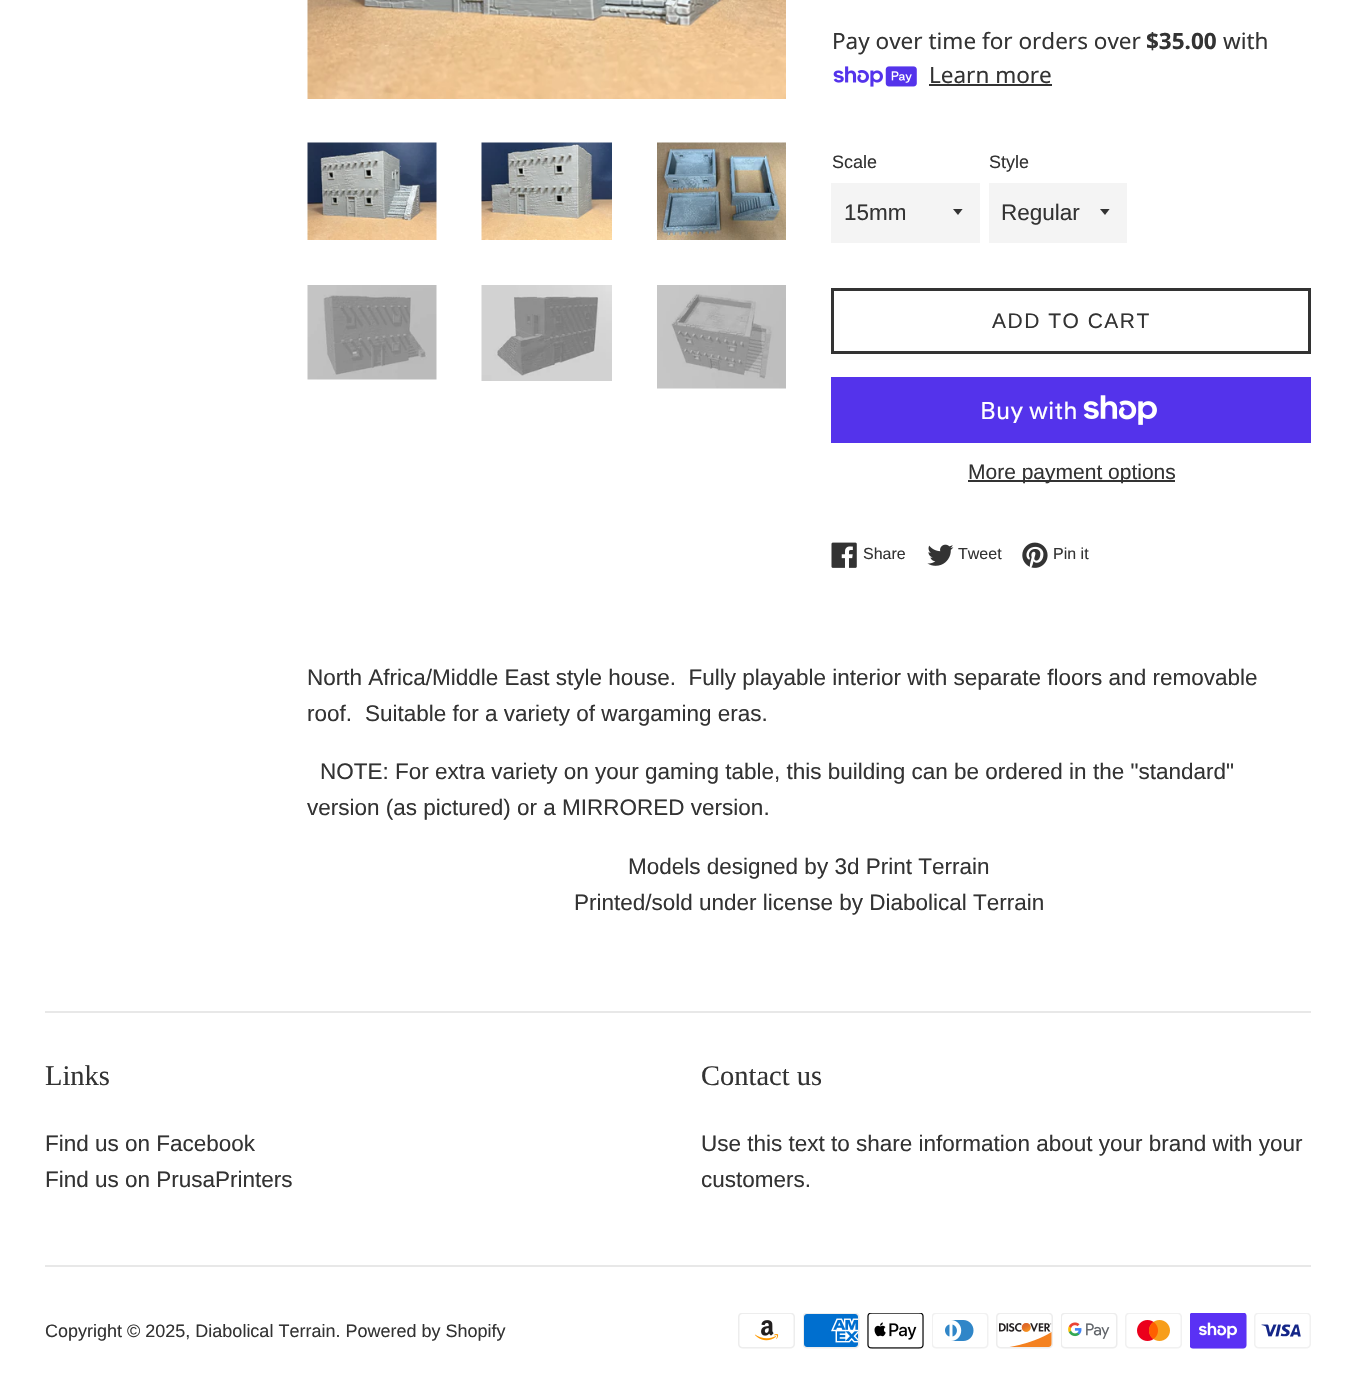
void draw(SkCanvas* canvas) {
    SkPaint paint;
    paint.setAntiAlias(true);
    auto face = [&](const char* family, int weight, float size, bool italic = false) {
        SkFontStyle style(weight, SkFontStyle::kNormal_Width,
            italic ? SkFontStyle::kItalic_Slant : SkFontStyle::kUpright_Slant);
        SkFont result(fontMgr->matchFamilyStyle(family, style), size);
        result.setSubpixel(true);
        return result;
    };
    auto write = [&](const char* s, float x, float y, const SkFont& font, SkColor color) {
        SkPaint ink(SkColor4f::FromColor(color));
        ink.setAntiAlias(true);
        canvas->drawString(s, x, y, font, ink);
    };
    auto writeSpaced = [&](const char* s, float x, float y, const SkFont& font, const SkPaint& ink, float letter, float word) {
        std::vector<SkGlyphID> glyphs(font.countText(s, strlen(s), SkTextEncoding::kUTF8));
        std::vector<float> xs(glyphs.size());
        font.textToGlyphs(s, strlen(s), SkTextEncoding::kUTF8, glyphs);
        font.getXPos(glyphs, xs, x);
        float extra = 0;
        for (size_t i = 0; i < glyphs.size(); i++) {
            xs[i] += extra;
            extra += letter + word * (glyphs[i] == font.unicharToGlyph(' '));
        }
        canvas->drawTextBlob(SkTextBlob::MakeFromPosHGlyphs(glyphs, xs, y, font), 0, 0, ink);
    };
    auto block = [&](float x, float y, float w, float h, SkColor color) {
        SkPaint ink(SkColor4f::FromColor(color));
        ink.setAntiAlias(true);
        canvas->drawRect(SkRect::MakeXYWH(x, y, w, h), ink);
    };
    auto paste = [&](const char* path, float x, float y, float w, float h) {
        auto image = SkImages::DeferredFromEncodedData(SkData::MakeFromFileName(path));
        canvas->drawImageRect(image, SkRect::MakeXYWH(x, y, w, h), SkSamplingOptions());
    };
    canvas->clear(SK_ColorWHITE);
    paste("pic1.png", 307, 0, 479, 99);
    paste("pic2.png", 307, 142, 130, 98);
    paste("pic3.png", 481, 142, 131, 98);
    paste("pic4.png", 657, 142, 129, 98);
    paste("pic5.png", 307, 285, 130, 95);
    paste("pic6.png", 481, 285, 131, 96);
    paste("pic7.png", 657, 285, 129, 104);
    auto kFont1 = face("Noto Sans", 400, 22.5f);
    write("Pay over time for orders over", 832, 49, kFont1, SkColorSetRGB(51, 51, 51));
    auto kFont2 = face("Noto Sans", 700, 22.5f);
    write("$35.00", 1146, 49, kFont2, SkColorSetRGB(51, 51, 51));
    write("with", 1223, 49, kFont1, SkColorSetRGB(51, 51, 51));
    paste("pic8.png", 833, 66, 84, 21);
    write("Learn more", 929, 83, kFont1, SkColorSetRGB(51, 51, 51));
    block(929, 84, 123, 2, SkColorSetRGB(51, 51, 51));
    auto kFont3 = face("Liberation Sans", 400, 18);
    write("Scale", 832, 168, kFont3, SkColorSetRGB(51, 51, 51));
    block(831, 183, 149, 60, SkColorSetRGB(244, 244, 244));
    canvas->save();
    canvas->clipRect(SkRect::MakeXYWH(953, 209, 12, 7));
    paint.setColor(SkColorSetRGB(51, 51, 51));
    canvas->drawPath(SkPathBuilder().moveTo(952.5f, 208.5f).lineTo(958, 215).lineTo(963, 208.5f).close().detach(), paint);
    canvas->restore();
    auto kFont4 = face("Liberation Sans", 400, 22.5f);
    write("15mm", 844, 220, kFont4, SkColorSetRGB(51, 51, 51));
    write("Style", 989, 168, kFont3, SkColorSetRGB(51, 51, 51));
    block(989, 183, 138, 60, SkColorSetRGB(244, 244, 244));
    canvas->save();
    canvas->clipRect(SkRect::MakeXYWH(1100, 209, 12, 7));
    canvas->drawPath(SkPathBuilder().moveTo(1099.5f, 208.5f).lineTo(1105, 215).lineTo(1110, 208.5f).close().detach(), paint);
    canvas->restore();
    write("Regular", 1001, 220, kFont4, SkColorSetRGB(51, 51, 51));
    paint.setStyle(SkPaint::kStroke_Style);
    paint.setStrokeWidth(3);
    canvas->drawRect(SkRect::MakeXYWH(832.5f, 289.5f, 477, 63), paint);
    auto kFont5 = face("Liberation Sans", 400, 21);
    paint.setStyle(SkPaint::kFill_Style);
    writeSpaced("ADD TO CART", 992, 328, kFont5, paint, 1.5f, 0);
    block(831, 377, 480, 66, SkColorSetRGB(84, 51, 235));
    auto kFont6 = face("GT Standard", 400, 24);
    write("Buy with", 980, 419, kFont6, SK_ColorWHITE);
    paste("pic9.png", 1083, 395, 74, 30);
    block(968, 480, 207, 2, SkColorSetRGB(51, 51, 51));
    write("More payment options", 968, 479, kFont5, SkColorSetRGB(51, 51, 51));
    paste("pic10.png", 831, 542, 26, 26);
    auto kFont7 = face("Liberation Sans", 400, 16);
    write("Share", 863, 559, kFont7, SkColorSetRGB(51, 51, 51));
    paste("pic11.png", 927, 544, 27, 22);
    write("Tweet", 958, 559, kFont7, SkColorSetRGB(51, 51, 51));
    paste("pic12.png", 1022, 542, 26, 26);
    write("Pin it", 1053, 559, kFont7, SkColorSetRGB(51, 51, 51));
    write("North Africa/Middle East style house.  Fully playable interior with separate floors and removable", 307, 685, kFont4, SkColorSetRGB(51, 51, 51));
    write("roof.", 307, 721, kFont4, SkColorSetRGB(51, 51, 51));
    write("Suitable for a variety of wargaming eras.", 365, 721, kFont4, SkColorSetRGB(51, 51, 51));
    write("NOTE: For extra variety on your gaming table, this building can be ordered in the \"standard\"", 320, 779, kFont4, SkColorSetRGB(51, 51, 51));
    write("version (as pictured) or a MIRRORED version.", 307, 815, kFont4, SkColorSetRGB(51, 51, 51));
    write("Models designed by 3d Print Terrain", 628, 874, kFont4, SkColorSetRGB(51, 51, 51));
    write("Printed/sold under license by Diabolical Terrain", 574, 910, kFont4, SkColorSetRGB(51, 51, 51));
    block(45, 1011, 1266, 2, SkColorSetRGB(232, 232, 232));
    auto kFont8 = face("Liberation Serif", 400, 28.5f);
    write("Links", 45, 1085, kFont8, SkColorSetRGB(51, 51, 51));
    write("Find us on Facebook", 45, 1151, kFont4, SkColorSetRGB(51, 51, 51));
    write("Find us on PrusaPrinters", 45, 1187, kFont4, SkColorSetRGB(51, 51, 51));
    write("Contact us", 701, 1085, kFont8, SkColorSetRGB(51, 51, 51));
    write("Use this text to share information about your brand with your", 701, 1151, kFont4, SkColorSetRGB(51, 51, 51));
    write("customers.", 701, 1187, kFont4, SkColorSetRGB(51, 51, 51));
    block(45, 1265, 1266, 2, SkColorSetRGB(232, 232, 232));
    write("Copyright © 2025, Diabolical Terrain. Powered by Shopify", 45, 1337, kFont3, SkColorSetRGB(51, 51, 51));
    paste("pic13.png", 738, 1313, 57, 36);
    paste("pic14.png", 803, 1313, 57, 36);
    paste("pic15.png", 867, 1313, 57, 36);
    paste("pic16.png", 932, 1313, 57, 36);
    paste("pic17.png", 996, 1313, 57, 36);
    paste("pic18.png", 1061, 1313, 57, 36);
    paste("pic19.png", 1125, 1313, 57, 36);
    paste("pic20.png", 1190, 1313, 57, 36);
    paste("pic21.png", 1254, 1313, 57, 36);
}
